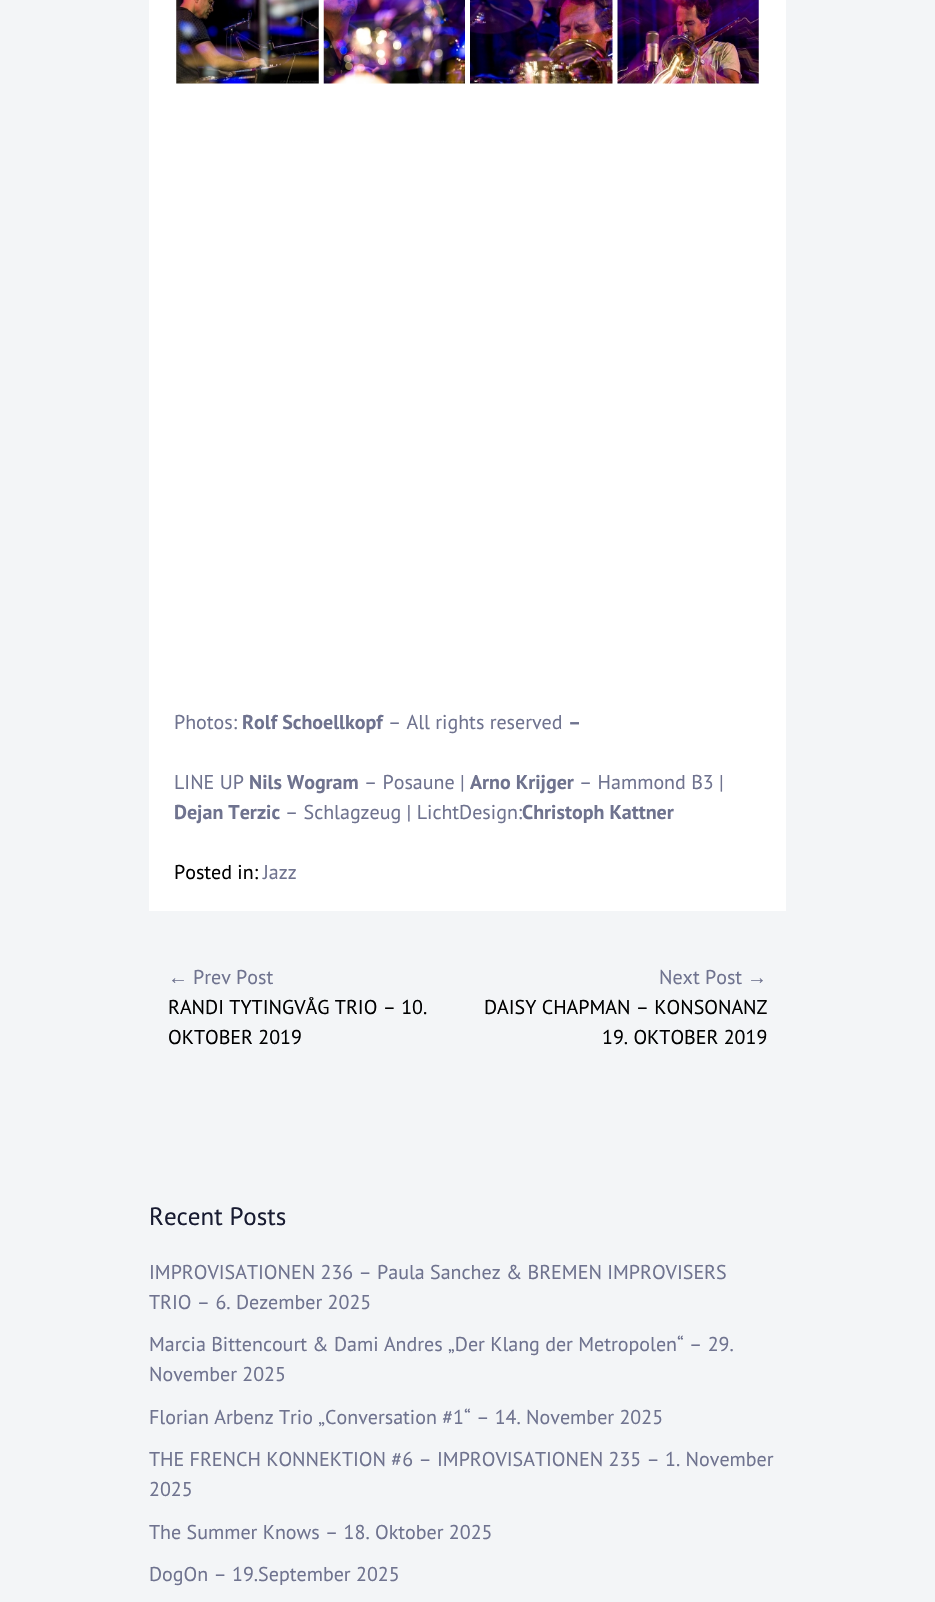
void draw(SkCanvas* canvas) {
    SkPaint paint;
    paint.setAntiAlias(true);
    auto face = [&](const char* family, int weight, float size, bool italic = false) {
        SkFontStyle style(weight, SkFontStyle::kNormal_Width,
            italic ? SkFontStyle::kItalic_Slant : SkFontStyle::kUpright_Slant);
        SkFont result(fontMgr->matchFamilyStyle(family, style), size);
        result.setSubpixel(true);
        return result;
    };
    auto write = [&](const char* s, float x, float y, const SkFont& font, SkColor color) {
        SkPaint ink(SkColor4f::FromColor(color));
        ink.setAntiAlias(true);
        canvas->drawString(s, x, y, font, ink);
    };
    auto block = [&](float x, float y, float w, float h, SkColor color) {
        SkPaint ink(SkColor4f::FromColor(color));
        ink.setAntiAlias(true);
        canvas->drawRect(SkRect::MakeXYWH(x, y, w, h), ink);
    };
    auto paste = [&](const char* path, float x, float y, float w, float h) {
        auto image = SkImages::DeferredFromEncodedData(SkData::MakeFromFileName(path));
        canvas->drawImageRect(image, SkRect::MakeXYWH(x, y, w, h), SkSamplingOptions());
    };
    canvas->clear(SkColorSetRGB(243, 245, 247));
    block(149, 0, 637, 911, SK_ColorWHITE);
    paste("pic1.png", 176, 0, 143, 84);
    paste("pic2.png", 323, 0, 142, 84);
    paste("pic3.png", 470, 0, 143, 84);
    paste("pic4.png", 617, 0, 142, 84);
    auto kFont1 = face("PT Sans", 400, 20);
    write("Photos:", 174, 729, kFont1, SkColorSetRGB(111, 115, 143));
    auto kFont2 = face("PT Sans", 700, 20);
    write("Rolf Schoellkopf", 242, 729, kFont2, SkColorSetRGB(111, 115, 143));
    write("– All rights reserved", 388, 729, kFont1, SkColorSetRGB(111, 115, 143));
    write("–", 568, 729, kFont2, SkColorSetRGB(111, 115, 143));
    write("LINE UP", 174, 789, kFont1, SkColorSetRGB(111, 115, 143));
    write("Nils Wogram", 249, 789, kFont2, SkColorSetRGB(111, 115, 143));
    write("– Posaune |", 364, 789, kFont1, SkColorSetRGB(111, 115, 143));
    write("Arno Krijger", 470, 789, kFont2, SkColorSetRGB(111, 115, 143));
    write("– Hammond B3 |", 579, 789, kFont1, SkColorSetRGB(111, 115, 143));
    write("Dejan Terzic", 174, 819, kFont2, SkColorSetRGB(111, 115, 143));
    write("– Schlagzeug | LichtDesign:", 285, 819, kFont1, SkColorSetRGB(111, 115, 143));
    write("Christoph Kattner", 522, 819, kFont2, SkColorSetRGB(111, 115, 143));
    write("Posted in:", 174, 879, kFont1, SK_ColorBLACK);
    write("Jazz", 263, 879, kFont1, SkColorSetRGB(111, 115, 143));
    auto kFont3 = face("Liberation Sans", 400, 20);
    write("←", 168, 984, kFont3, SkColorSetRGB(111, 115, 143));
    write("Prev Post", 193, 984, kFont1, SkColorSetRGB(111, 115, 143));
    write("RANDI TYTINGVÅG TRIO – 10.", 168, 1014, kFont1, SK_ColorBLACK);
    write("OKTOBER 2019", 168, 1044, kFont1, SK_ColorBLACK);
    write("Next Post", 659, 984, kFont1, SkColorSetRGB(111, 115, 143));
    write("→", 747, 984, kFont3, SkColorSetRGB(111, 115, 143));
    write("DAISY CHAPMAN – KONSONANZ", 484, 1014, kFont1, SK_ColorBLACK);
    write("19. OKTOBER 2019", 602, 1044, kFont1, SK_ColorBLACK);
    auto kFont4 = face("PT Sans", 400, 25);
    write("Recent Posts", 149, 1225, kFont4, SkColorSetRGB(24, 27, 49));
    write("IMPROVISATIONEN 236 – Paula Sanchez & BREMEN IMPROVISERS", 149, 1279, kFont1, SkColorSetRGB(111, 115, 143));
    write("TRIO – 6. Dezember 2025", 149, 1309, kFont1, SkColorSetRGB(111, 115, 143));
    write("Marcia Bittencourt & Dami Andres „Der Klang der Metropolen“ – 29.", 149, 1351, kFont1, SkColorSetRGB(111, 115, 143));
    write("November 2025", 149, 1381, kFont1, SkColorSetRGB(111, 115, 143));
    write("Florian Arbenz Trio „Conversation #1“ – 14. November 2025", 149, 1424, kFont1, SkColorSetRGB(111, 115, 143));
    write("THE FRENCH KONNEKTION #6 – IMPROVISATIONEN 235 – 1. November", 149, 1466, kFont1, SkColorSetRGB(111, 115, 143));
    write("2025", 149, 1496, kFont1, SkColorSetRGB(111, 115, 143));
    write("The Summer Knows – 18. Oktober 2025", 149, 1539, kFont1, SkColorSetRGB(111, 115, 143));
    write("DogOn – 19.September 2025", 149, 1581, kFont1, SkColorSetRGB(111, 115, 143));
}
